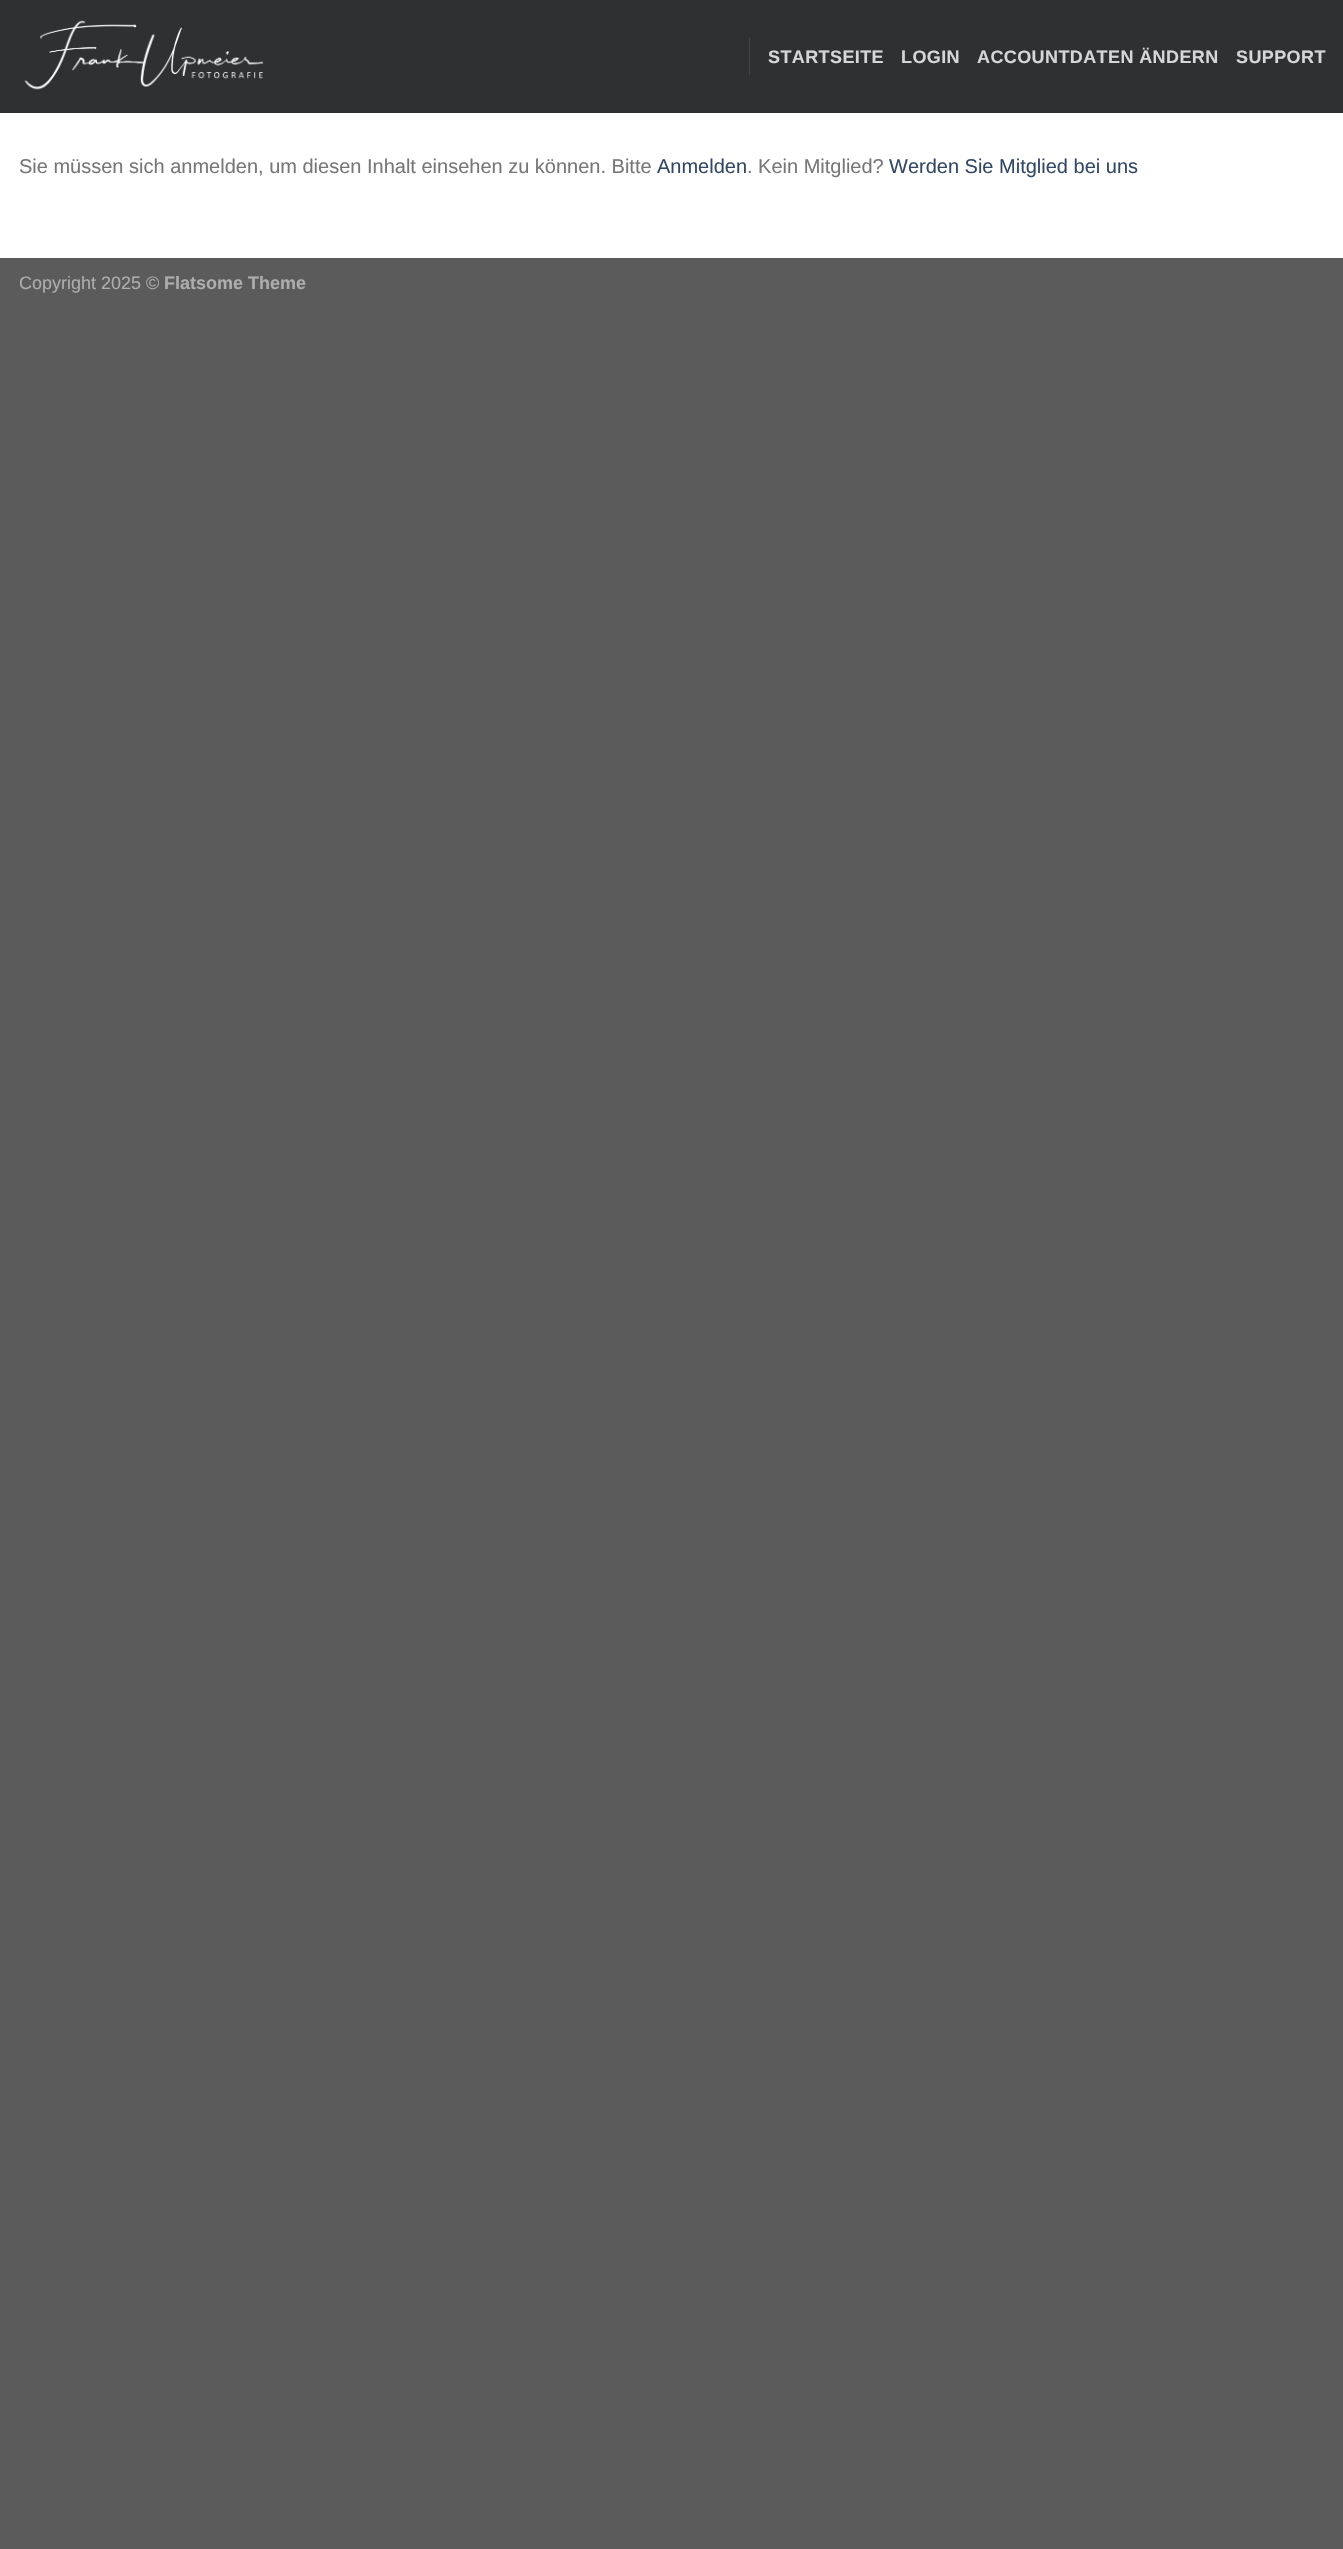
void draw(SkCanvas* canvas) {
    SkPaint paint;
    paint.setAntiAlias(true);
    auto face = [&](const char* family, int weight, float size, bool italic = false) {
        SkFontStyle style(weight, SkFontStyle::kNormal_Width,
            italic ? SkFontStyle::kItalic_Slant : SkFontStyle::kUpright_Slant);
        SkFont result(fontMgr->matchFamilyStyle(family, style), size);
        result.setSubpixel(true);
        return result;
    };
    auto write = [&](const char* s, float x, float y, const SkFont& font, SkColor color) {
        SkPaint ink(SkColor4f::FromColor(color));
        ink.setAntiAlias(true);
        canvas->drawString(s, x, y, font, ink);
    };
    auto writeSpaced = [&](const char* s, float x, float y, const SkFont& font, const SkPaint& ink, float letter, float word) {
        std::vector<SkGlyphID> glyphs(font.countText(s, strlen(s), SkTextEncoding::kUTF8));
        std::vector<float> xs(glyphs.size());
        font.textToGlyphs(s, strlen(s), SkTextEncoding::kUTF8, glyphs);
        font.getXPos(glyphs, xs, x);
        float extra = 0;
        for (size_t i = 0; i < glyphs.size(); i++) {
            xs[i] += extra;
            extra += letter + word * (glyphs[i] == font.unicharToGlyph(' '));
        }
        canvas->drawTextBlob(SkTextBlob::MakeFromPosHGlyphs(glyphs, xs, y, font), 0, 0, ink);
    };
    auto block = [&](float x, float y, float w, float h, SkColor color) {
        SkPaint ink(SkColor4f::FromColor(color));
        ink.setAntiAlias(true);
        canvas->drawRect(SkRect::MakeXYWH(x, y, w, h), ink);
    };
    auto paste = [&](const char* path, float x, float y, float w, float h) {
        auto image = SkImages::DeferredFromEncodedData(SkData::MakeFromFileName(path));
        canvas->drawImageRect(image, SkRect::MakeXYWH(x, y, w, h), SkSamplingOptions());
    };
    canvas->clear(SkColorSetRGB(91, 91, 91));
    block(0, 113, 1343, 145, SK_ColorWHITE);
    block(0, 0, 1343, 113, SkColorSetRGB(47, 48, 50));
    paste("pic1.png", 24, 20, 240, 70);
    block(749, 38, 1, 37, SkColorSetRGB(68, 69, 71));
    auto kFont1 = face("Liberation Sans", 700, 18);
    paint.setColor(SkColorSetRGB(213, 214, 214));
    writeSpaced("STARTSEITE", 768, 63, kFont1, paint, 0.4f, 0);
    writeSpaced("LOGIN", 901, 63, kFont1, paint, 0.4f, 0);
    writeSpaced("ACCOUNTDATEN ÄNDERN", 977, 63, kFont1, paint, 0.4f, 0);
    writeSpaced("SUPPORT", 1236, 63, kFont1, paint, 0.4f, 0);
    auto kFont2 = face("Liberation Sans", 400, 20);
    write("Sie müssen sich anmelden, um diesen Inhalt einsehen zu können. Bitte", 19, 173, kFont2, SkColorSetRGB(119, 119, 119));
    write("Anmelden", 657, 173, kFont2, SkColorSetRGB(51, 72, 98));
    write(". Kein Mitglied?", 747, 173, kFont2, SkColorSetRGB(119, 119, 119));
    write("Werden Sie Mitglied bei uns", 889, 173, kFont2, SkColorSetRGB(51, 72, 98));
    auto kFont3 = face("Liberation Sans", 400, 18);
    write("Copyright 2025 ©", 19, 289, kFont3, SkColorSetRGB(173, 173, 173));
    write("Flatsome Theme", 164, 289, kFont1, SkColorSetRGB(173, 173, 173));
}
